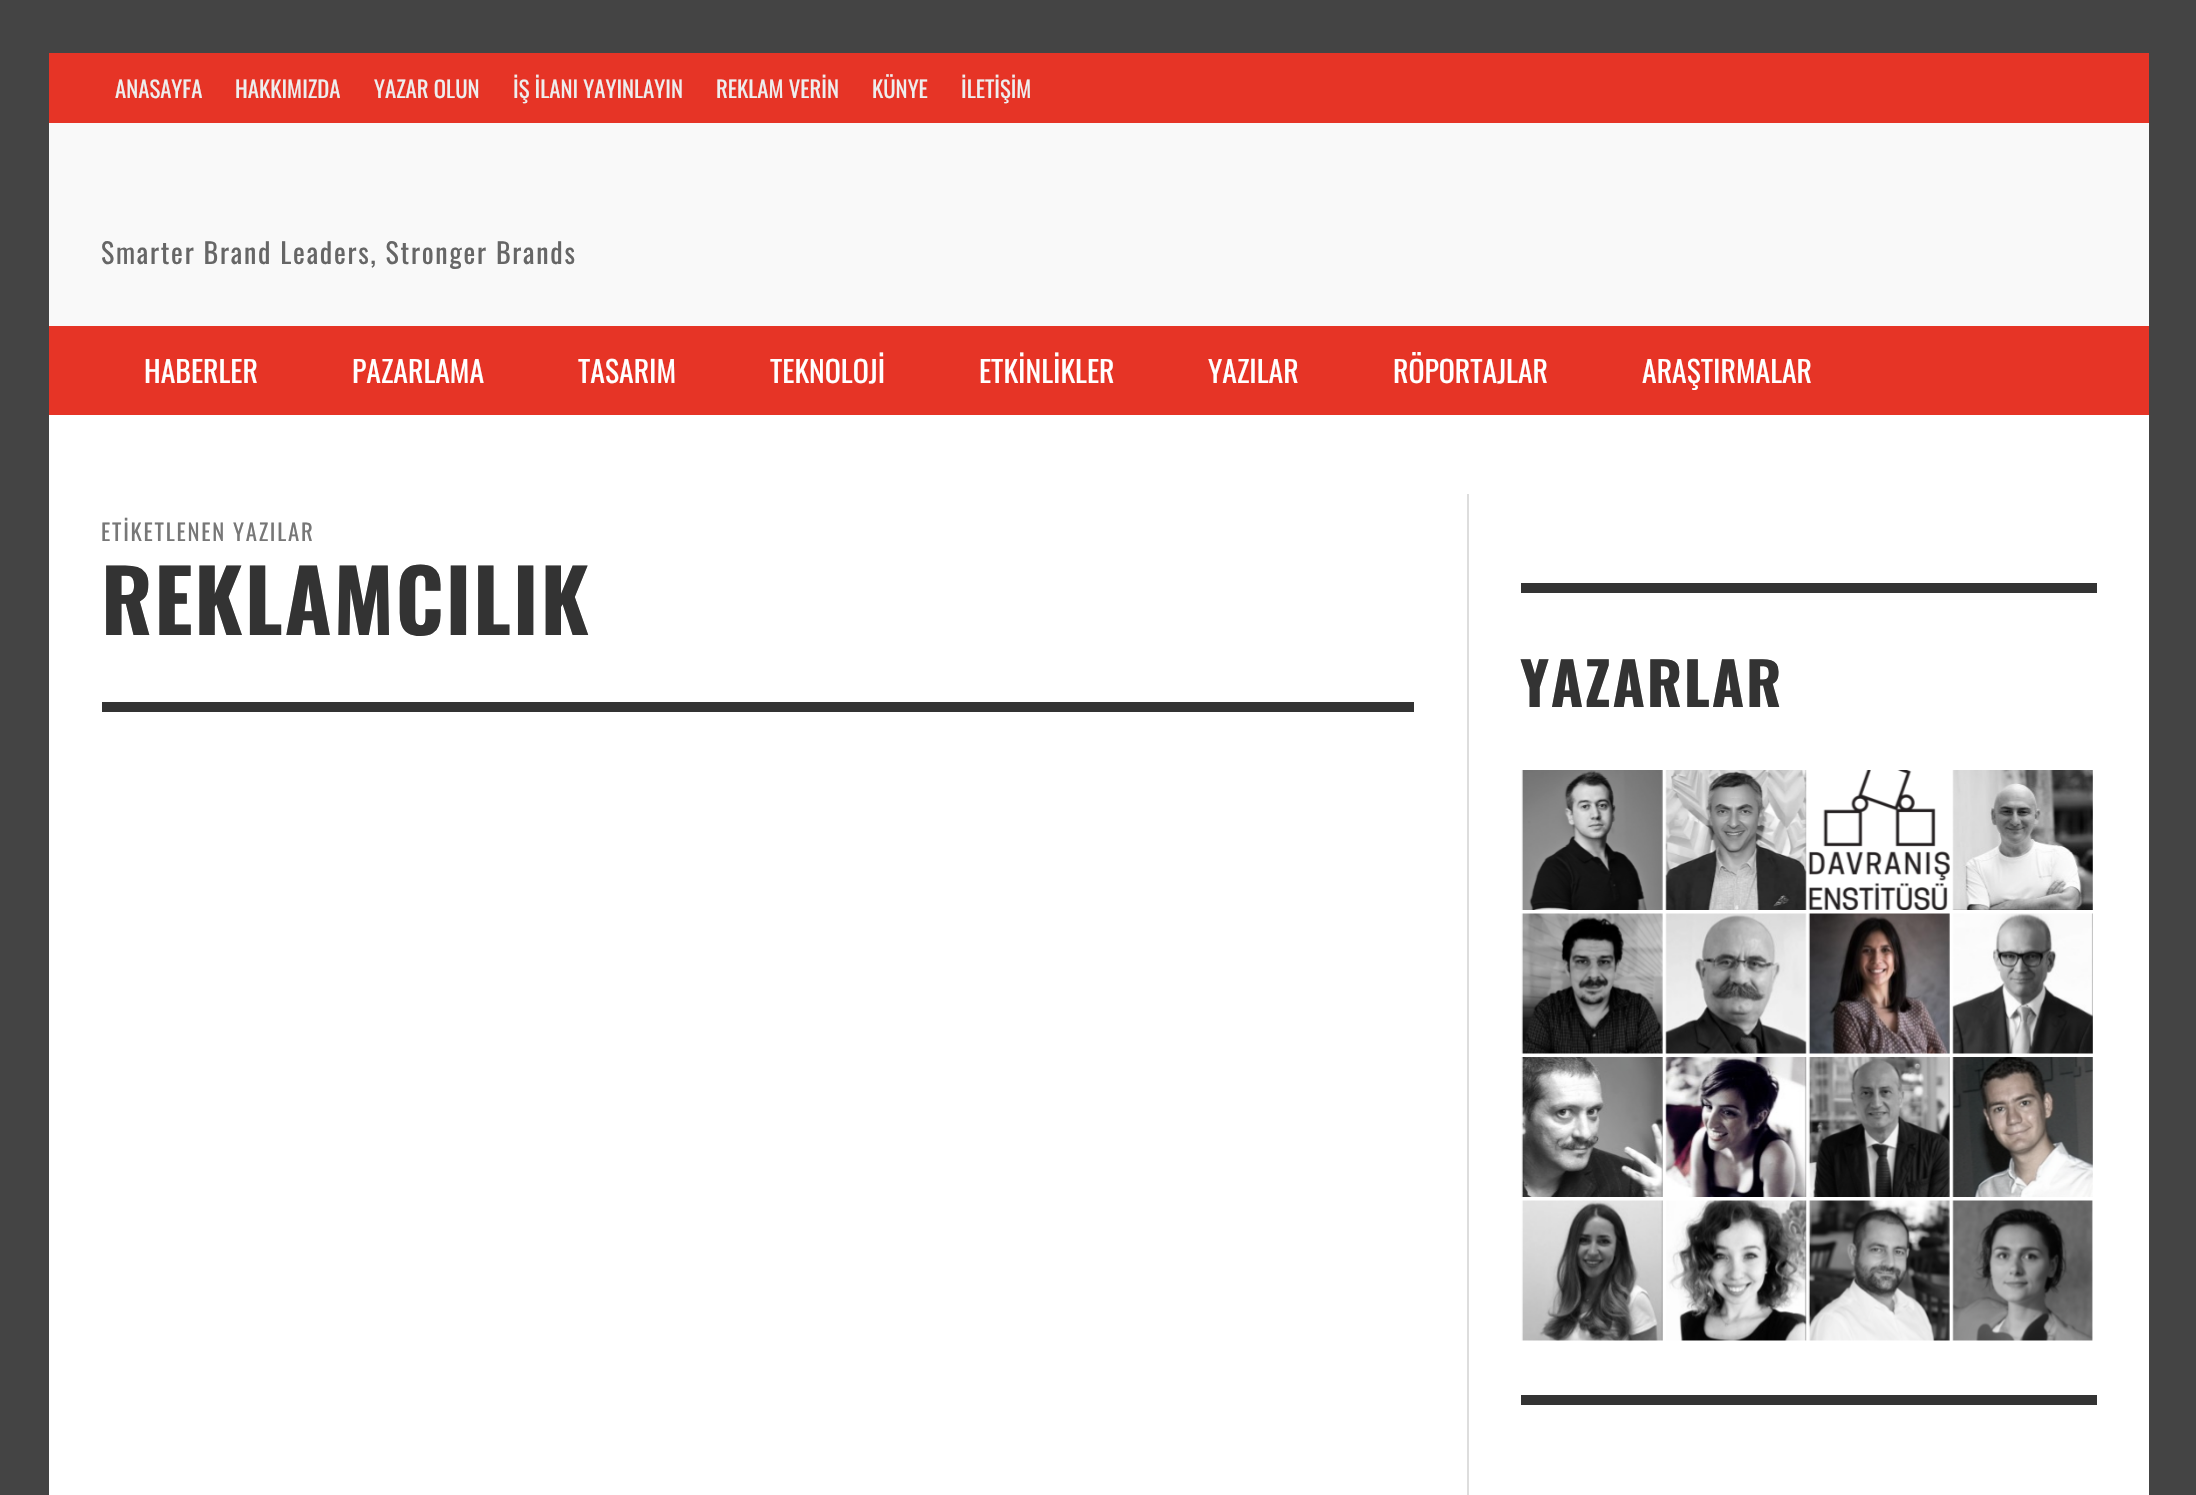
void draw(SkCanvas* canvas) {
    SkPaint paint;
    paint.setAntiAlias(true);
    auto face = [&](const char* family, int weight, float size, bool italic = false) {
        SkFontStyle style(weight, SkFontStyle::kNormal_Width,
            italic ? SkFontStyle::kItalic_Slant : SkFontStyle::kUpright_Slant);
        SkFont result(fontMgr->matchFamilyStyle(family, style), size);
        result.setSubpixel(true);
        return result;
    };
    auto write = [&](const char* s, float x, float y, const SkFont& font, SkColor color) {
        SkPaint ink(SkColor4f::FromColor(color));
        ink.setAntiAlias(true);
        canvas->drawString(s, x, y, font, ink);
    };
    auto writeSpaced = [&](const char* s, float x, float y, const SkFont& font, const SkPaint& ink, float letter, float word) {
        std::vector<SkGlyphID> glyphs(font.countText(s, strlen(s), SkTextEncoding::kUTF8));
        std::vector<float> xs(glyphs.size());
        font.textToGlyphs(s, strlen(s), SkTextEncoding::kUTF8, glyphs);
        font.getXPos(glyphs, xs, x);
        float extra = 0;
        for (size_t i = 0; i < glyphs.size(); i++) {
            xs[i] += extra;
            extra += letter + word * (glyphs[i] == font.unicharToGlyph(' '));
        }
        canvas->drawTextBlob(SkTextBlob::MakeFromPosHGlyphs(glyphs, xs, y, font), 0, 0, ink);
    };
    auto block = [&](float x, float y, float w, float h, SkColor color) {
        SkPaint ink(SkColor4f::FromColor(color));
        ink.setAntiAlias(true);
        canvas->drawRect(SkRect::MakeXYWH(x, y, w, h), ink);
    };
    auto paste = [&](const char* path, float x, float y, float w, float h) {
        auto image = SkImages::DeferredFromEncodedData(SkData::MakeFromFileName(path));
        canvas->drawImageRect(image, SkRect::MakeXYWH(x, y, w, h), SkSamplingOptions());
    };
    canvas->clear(SkColorSetRGB(68, 68, 68));
    block(49, 415, 2100, 1080, SK_ColorWHITE);
    block(49, 53, 2100, 70, SkColorSetRGB(230, 52, 38));
    auto kFont1 = face("Oswald", 400, 22.75f);
    write("ANASAYFA", 115, 98, kFont1, SkColorSetRGB(238, 238, 238));
    write("HAKKIMIZDA", 235, 98, kFont1, SkColorSetRGB(238, 238, 238));
    write("YAZAR OLUN", 374, 98, kFont1, SkColorSetRGB(238, 238, 238));
    write("İŞ İLANI YAYINLAYIN", 513, 98, kFont1, SkColorSetRGB(238, 238, 238));
    write("REKLAM VERİN", 716, 98, kFont1, SkColorSetRGB(238, 238, 238));
    write("KÜNYE", 872, 98, kFont1, SkColorSetRGB(238, 238, 238));
    write("İLETİŞİM", 961, 98, kFont1, SkColorSetRGB(238, 238, 238));
    block(49, 123, 2100, 203, SkColorSetRGB(249, 249, 249));
    auto kFont2 = face("Oswald", 400, 28);
    paint.setColor(SkColorSetRGB(102, 102, 102));
    writeSpaced("Smarter Brand Leaders, Stronger Brands", 101, 264, kFont2, paint, 1.75f, 0);
    block(49, 326, 2100, 89, SkColorSetRGB(230, 52, 38));
    auto kFont3 = face("Oswald", 400, 29.75f);
    write("HABERLER", 144, 383, kFont3, SK_ColorWHITE);
    write("PAZARLAMA", 352, 383, kFont3, SK_ColorWHITE);
    write("TASARIM", 578, 383, kFont3, SK_ColorWHITE);
    write("TEKNOLOJİ", 770, 383, kFont3, SK_ColorWHITE);
    write("ETKİNLİKLER", 979, 383, kFont3, SK_ColorWHITE);
    write("YAZILAR", 1208, 383, kFont3, SK_ColorWHITE);
    write("RÖPORTAJLAR", 1393, 383, kFont3, SK_ColorWHITE);
    write("ARAŞTIRMALAR", 1642, 383, kFont3, SK_ColorWHITE);
    paint.setColor(SkColorSetRGB(119, 119, 119));
    writeSpaced("ETİKETLENEN YAZILAR", 101, 541, kFont1, paint, 1.75f, 0);
    auto kFont4 = face("Oswald", 700, 85.75f);
    paint.setColor(SkColorSetRGB(51, 51, 51));
    writeSpaced("REKLAMCILIK", 101, 635, kFont4, paint, 1.75f, 0);
    block(102, 702, 1312, 10, SkColorSetRGB(51, 51, 51));
    block(1467, 494, 2, 1001, SkColorSetRGB(221, 221, 221));
    block(1521, 583, 576, 10, SkColorSetRGB(51, 51, 51));
    auto kFont5 = face("Oswald", 700, 59);
    writeSpaced("YAZARLAR", 1520, 707, kFont5, paint, 1.75f, 0);
    paste("pic1.png", 1521, 770, 142, 140);
    paste("pic2.png", 1665, 770, 142, 140);
    paste("pic3.png", 1808, 770, 142, 140);
    paste("pic4.png", 1952, 770, 141, 140);
    paste("pic5.png", 1521, 913, 142, 141);
    paste("pic6.png", 1665, 913, 142, 141);
    paste("pic7.png", 1808, 913, 142, 141);
    paste("pic8.png", 1952, 913, 141, 141);
    paste("pic9.png", 1521, 1057, 142, 140);
    paste("pic10.png", 1665, 1057, 142, 140);
    paste("pic11.png", 1808, 1057, 142, 140);
    paste("pic12.png", 1952, 1057, 141, 140);
    paste("pic13.png", 1521, 1200, 142, 141);
    paste("pic14.png", 1666, 1200, 141, 141);
    paste("pic15.png", 1808, 1200, 142, 141);
    paste("pic16.png", 1952, 1200, 141, 141);
    block(1521, 1395, 576, 10, SkColorSetRGB(51, 51, 51));
}
